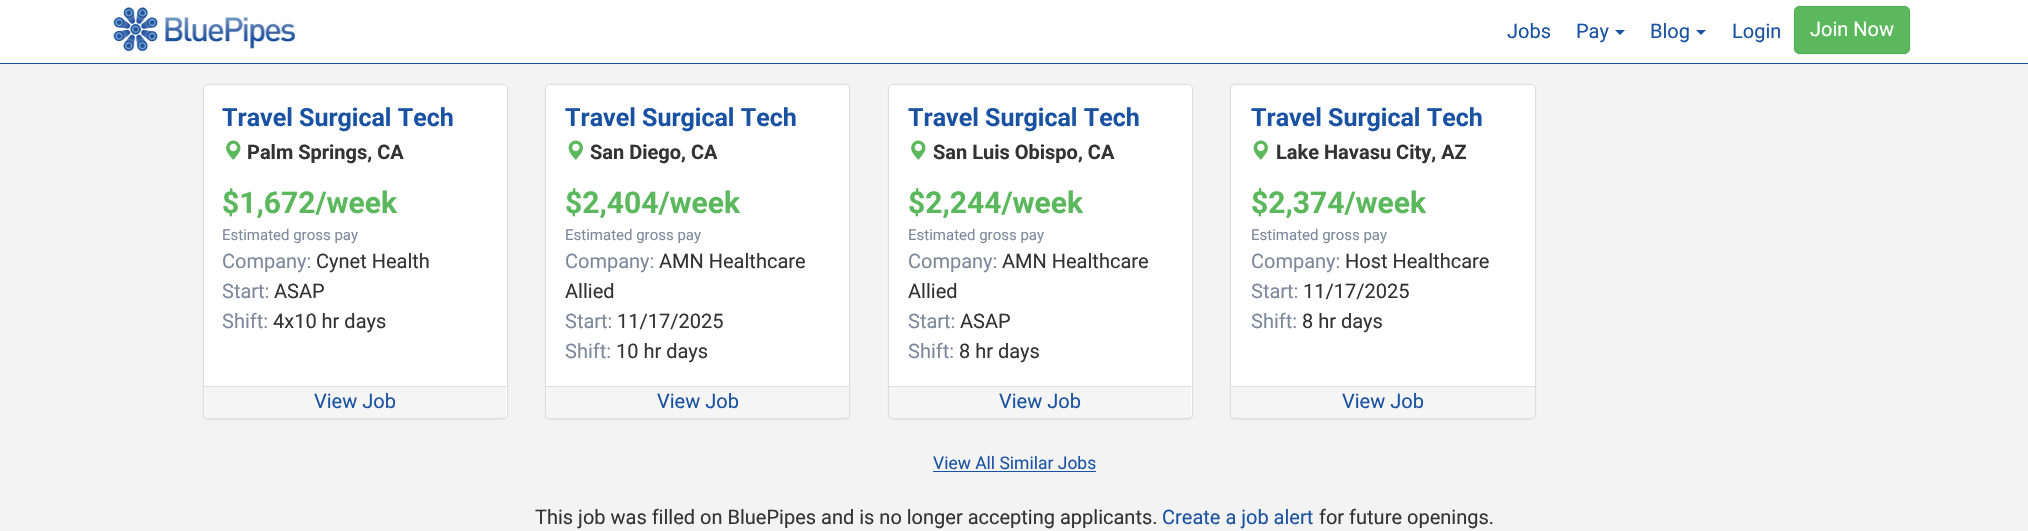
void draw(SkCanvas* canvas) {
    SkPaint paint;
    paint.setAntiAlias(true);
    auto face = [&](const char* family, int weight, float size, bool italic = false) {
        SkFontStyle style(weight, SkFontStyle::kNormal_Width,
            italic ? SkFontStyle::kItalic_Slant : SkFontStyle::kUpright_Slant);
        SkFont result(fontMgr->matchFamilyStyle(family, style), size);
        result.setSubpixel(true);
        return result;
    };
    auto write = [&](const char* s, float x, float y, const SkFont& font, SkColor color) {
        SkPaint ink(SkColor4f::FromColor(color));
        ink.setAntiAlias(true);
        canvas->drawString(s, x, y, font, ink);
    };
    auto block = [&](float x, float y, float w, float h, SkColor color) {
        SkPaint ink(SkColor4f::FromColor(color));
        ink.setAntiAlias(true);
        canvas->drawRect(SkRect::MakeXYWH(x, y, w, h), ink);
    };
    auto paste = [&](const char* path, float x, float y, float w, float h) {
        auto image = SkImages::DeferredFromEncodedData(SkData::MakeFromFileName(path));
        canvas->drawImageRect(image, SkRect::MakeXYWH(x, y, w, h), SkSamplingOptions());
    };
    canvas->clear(SkColorSetRGB(243, 243, 244));
    block(0, 63, 2028, 1, SkColorSetRGB(26, 82, 163));
    block(0, 0, 2028, 63, SkColorSetRGB(254, 254, 254));
    paste("pic1.png", 113, 7, 182, 45);
    auto kFont1 = face("Roboto", 400, 20);
    write("Jobs", 1507, 38, kFont1, SkColorSetRGB(26, 82, 163));
    write("Pay", 1576, 38, kFont1, SkColorSetRGB(26, 82, 163));
    paint.setColor(SkColorSetRGB(26, 82, 163));
    canvas->drawPath(SkPathBuilder().moveTo(1615, 30).lineTo(1625, 30).lineTo(1620, 35).close().detach(), paint);
    write("Blog", 1650, 38, kFont1, SkColorSetRGB(26, 82, 163));
    canvas->drawPath(SkPathBuilder().moveTo(1696, 30).lineTo(1706, 30).lineTo(1701, 35).close().detach(), paint);
    write("Login", 1732, 38, kFont1, SkColorSetRGB(26, 82, 163));
    paint.setColor(SkColorSetRGB(92, 184, 92));
    canvas->drawRoundRect(SkRect::MakeXYWH(1794.5f, 6.5f, 115, 47), 4.5f, 4.5f, paint);
    paint.setStyle(SkPaint::kStroke_Style);
    paint.setStrokeWidth(1);
    paint.setColor(SkColorSetRGB(76, 174, 76));
    canvas->drawRoundRect(SkRect::MakeXYWH(1794.5f, 6.5f, 115, 47), 4.5f, 4.5f, paint);
    write("Join Now", 1810, 36, kFont1, SK_ColorWHITE);
    paint.setStyle(SkPaint::kFill_Style);
    paint.setColor(SkColorSetARGB(13, 0, 0, 0));
    paint.setMaskFilter(SkMaskFilter::MakeBlur(kNormal_SkBlurStyle, 0.5f));
    canvas->drawRoundRect(SkRect::MakeXYWH(203, 85, 305, 335), 5, 5, paint);
    paint.setMaskFilter(nullptr);
    paint.setColor(SK_ColorWHITE);
    canvas->drawRoundRect(SkRect::MakeXYWH(203.5f, 84.5f, 304, 334), 4.5f, 4.5f, paint);
    paint.setStyle(SkPaint::kStroke_Style);
    paint.setColor(SkColorSetRGB(221, 221, 221));
    canvas->drawRoundRect(SkRect::MakeXYWH(203.5f, 84.5f, 304, 334), 4.5f, 4.5f, paint);
    auto kFont2 = face("Roboto", 700, 25);
    write("Travel Surgical Tech", 222, 126, kFont2, SkColorSetRGB(26, 82, 163));
    paste("pic2.png", 226, 140, 15, 20);
    auto kFont3 = face("Roboto", 700, 20);
    write("Palm Springs, CA", 247, 159, kFont3, SkColorSetRGB(51, 51, 51));
    auto kFont4 = face("Roboto", 700, 30);
    write("$1,672/week", 222, 213, kFont4, SkColorSetRGB(92, 184, 92));
    auto kFont5 = face("Roboto", 400, 15);
    write("Estimated gross pay", 222, 240, kFont5, SkColorSetRGB(125, 137, 155));
    write("Company:", 222, 268, kFont1, SkColorSetRGB(125, 137, 155));
    write("Cynet Health", 316, 268, kFont1, SkColorSetRGB(51, 51, 51));
    write("Start:", 222, 298, kFont1, SkColorSetRGB(125, 137, 155));
    write("ASAP", 274, 298, kFont1, SkColorSetRGB(51, 51, 51));
    write("Shift:", 222, 328, kFont1, SkColorSetRGB(125, 137, 155));
    write("4x10 hr days", 273, 328, kFont1, SkColorSetRGB(51, 51, 51));
    paint.setStyle(SkPaint::kFill_Style);
    paint.setColor(SkColorSetRGB(245, 245, 245));
    canvas->drawPath(SkPathBuilder().moveTo(204, 386).lineTo(506, 386).lineTo(506, 414).cubicTo(506, 416, 504, 418, 502, 418).lineTo(208, 418).cubicTo(206, 418, 204, 416, 204, 414).close().detach(), paint);
    block(204, 386, 302, 1, SkColorSetRGB(221, 221, 221));
    write("View Job", 314, 408, kFont1, SkColorSetRGB(26, 82, 163));
    paint.setColor(SkColorSetARGB(13, 0, 0, 0));
    paint.setMaskFilter(SkMaskFilter::MakeBlur(kNormal_SkBlurStyle, 0.5f));
    canvas->drawRoundRect(SkRect::MakeXYWH(545, 85, 305, 335), 5, 5, paint);
    paint.setMaskFilter(nullptr);
    paint.setColor(SK_ColorWHITE);
    canvas->drawRoundRect(SkRect::MakeXYWH(545.5f, 84.5f, 304, 334), 4.5f, 4.5f, paint);
    paint.setStyle(SkPaint::kStroke_Style);
    paint.setColor(SkColorSetRGB(221, 221, 221));
    canvas->drawRoundRect(SkRect::MakeXYWH(545.5f, 84.5f, 304, 334), 4.5f, 4.5f, paint);
    write("Travel Surgical Tech", 565, 126, kFont2, SkColorSetRGB(26, 82, 163));
    paste("pic3.png", 568, 140, 15, 20);
    write("San Diego, CA", 590, 159, kFont3, SkColorSetRGB(51, 51, 51));
    write("$2,404/week", 565, 213, kFont4, SkColorSetRGB(92, 184, 92));
    write("Estimated gross pay", 565, 240, kFont5, SkColorSetRGB(125, 137, 155));
    write("Company:", 565, 268, kFont1, SkColorSetRGB(125, 137, 155));
    write("AMN Healthcare", 659, 268, kFont1, SkColorSetRGB(51, 51, 51));
    write("Allied", 565, 298, kFont1, SkColorSetRGB(51, 51, 51));
    write("Start:", 565, 328, kFont1, SkColorSetRGB(125, 137, 155));
    write("11/17/2025", 617, 328, kFont1, SkColorSetRGB(51, 51, 51));
    write("Shift:", 565, 358, kFont1, SkColorSetRGB(125, 137, 155));
    write("10 hr days", 616, 358, kFont1, SkColorSetRGB(51, 51, 51));
    paint.setStyle(SkPaint::kFill_Style);
    paint.setColor(SkColorSetRGB(245, 245, 245));
    canvas->drawPath(SkPathBuilder().moveTo(546, 386).lineTo(849, 386).lineTo(849, 414).cubicTo(849, 416, 847, 418, 845, 418).lineTo(550, 418).cubicTo(548, 418, 546, 416, 546, 414).close().detach(), paint);
    block(546, 386, 303, 1, SkColorSetRGB(221, 221, 221));
    write("View Job", 657, 408, kFont1, SkColorSetRGB(26, 82, 163));
    paint.setColor(SkColorSetARGB(13, 0, 0, 0));
    paint.setMaskFilter(SkMaskFilter::MakeBlur(kNormal_SkBlurStyle, 0.5f));
    canvas->drawRoundRect(SkRect::MakeXYWH(888, 85, 305, 335), 5, 5, paint);
    paint.setMaskFilter(nullptr);
    paint.setColor(SK_ColorWHITE);
    canvas->drawRoundRect(SkRect::MakeXYWH(888.5f, 84.5f, 304, 334), 4.5f, 4.5f, paint);
    paint.setStyle(SkPaint::kStroke_Style);
    paint.setColor(SkColorSetRGB(221, 221, 221));
    canvas->drawRoundRect(SkRect::MakeXYWH(888.5f, 84.5f, 304, 334), 4.5f, 4.5f, paint);
    write("Travel Surgical Tech", 908, 126, kFont2, SkColorSetRGB(26, 82, 163));
    paste("pic2.png", 911, 140, 15, 20);
    write("San Luis Obispo, CA", 933, 159, kFont3, SkColorSetRGB(51, 51, 51));
    write("$2,244/week", 908, 213, kFont4, SkColorSetRGB(92, 184, 92));
    write("Estimated gross pay", 908, 240, kFont5, SkColorSetRGB(125, 137, 155));
    write("Company:", 908, 268, kFont1, SkColorSetRGB(125, 137, 155));
    write("AMN Healthcare", 1002, 268, kFont1, SkColorSetRGB(51, 51, 51));
    write("Allied", 908, 298, kFont1, SkColorSetRGB(51, 51, 51));
    write("Start:", 908, 328, kFont1, SkColorSetRGB(125, 137, 155));
    write("ASAP", 960, 328, kFont1, SkColorSetRGB(51, 51, 51));
    write("Shift:", 908, 358, kFont1, SkColorSetRGB(125, 137, 155));
    write("8 hr days", 959, 358, kFont1, SkColorSetRGB(51, 51, 51));
    paint.setStyle(SkPaint::kFill_Style);
    paint.setColor(SkColorSetRGB(245, 245, 245));
    canvas->drawPath(SkPathBuilder().moveTo(889, 386).lineTo(1191, 386).lineTo(1191, 414).cubicTo(1191, 416, 1189, 418, 1187, 418).lineTo(893, 418).cubicTo(891, 418, 889, 416, 889, 414).close().detach(), paint);
    block(889, 386, 302, 1, SkColorSetRGB(221, 221, 221));
    write("View Job", 999, 408, kFont1, SkColorSetRGB(26, 82, 163));
    paint.setColor(SkColorSetARGB(13, 0, 0, 0));
    paint.setMaskFilter(SkMaskFilter::MakeBlur(kNormal_SkBlurStyle, 0.5f));
    canvas->drawRoundRect(SkRect::MakeXYWH(1230, 85, 306, 335), 5, 5, paint);
    paint.setMaskFilter(nullptr);
    paint.setColor(SK_ColorWHITE);
    canvas->drawRoundRect(SkRect::MakeXYWH(1230.5f, 84.5f, 305, 334), 4.5f, 4.5f, paint);
    paint.setStyle(SkPaint::kStroke_Style);
    paint.setColor(SkColorSetRGB(221, 221, 221));
    canvas->drawRoundRect(SkRect::MakeXYWH(1230.5f, 84.5f, 305, 334), 4.5f, 4.5f, paint);
    write("Travel Surgical Tech", 1251, 126, kFont2, SkColorSetRGB(26, 82, 163));
    paste("pic3.png", 1253, 140, 15, 20);
    write("Lake Havasu City, AZ", 1276, 159, kFont3, SkColorSetRGB(51, 51, 51));
    write("$2,374/week", 1251, 213, kFont4, SkColorSetRGB(92, 184, 92));
    write("Estimated gross pay", 1251, 240, kFont5, SkColorSetRGB(125, 137, 155));
    write("Company:", 1251, 268, kFont1, SkColorSetRGB(125, 137, 155));
    write("Host Healthcare", 1345, 268, kFont1, SkColorSetRGB(51, 51, 51));
    write("Start:", 1251, 298, kFont1, SkColorSetRGB(125, 137, 155));
    write("11/17/2025", 1303, 298, kFont1, SkColorSetRGB(51, 51, 51));
    write("Shift:", 1251, 328, kFont1, SkColorSetRGB(125, 137, 155));
    write("8 hr days", 1302, 328, kFont1, SkColorSetRGB(51, 51, 51));
    paint.setStyle(SkPaint::kFill_Style);
    paint.setColor(SkColorSetRGB(245, 245, 245));
    canvas->drawPath(SkPathBuilder().moveTo(1231, 386).lineTo(1535, 386).lineTo(1535, 414).cubicTo(1535, 416, 1533, 418, 1531, 418).lineTo(1235, 418).cubicTo(1233, 418, 1231, 416, 1231, 414).close().detach(), paint);
    block(1231, 386, 304, 1, SkColorSetRGB(221, 221, 221));
    write("View Job", 1342, 408, kFont1, SkColorSetRGB(26, 82, 163));
    auto kFont6 = face("Roboto", 400, 17.5f);
    write("View All Similar Jobs", 933, 469, kFont6, SkColorSetRGB(26, 82, 163));
    block(933, 471, 163, 1, SkColorSetRGB(26, 82, 163));
    write("This job was filled on BluePipes and is no longer accepting applicants.", 535, 524, kFont1, SkColorSetRGB(51, 51, 51));
    write("Create a job alert", 1162, 524, kFont1, SkColorSetRGB(26, 82, 163));
    write("for future openings.", 1319, 524, kFont1, SkColorSetRGB(51, 51, 51));
}
